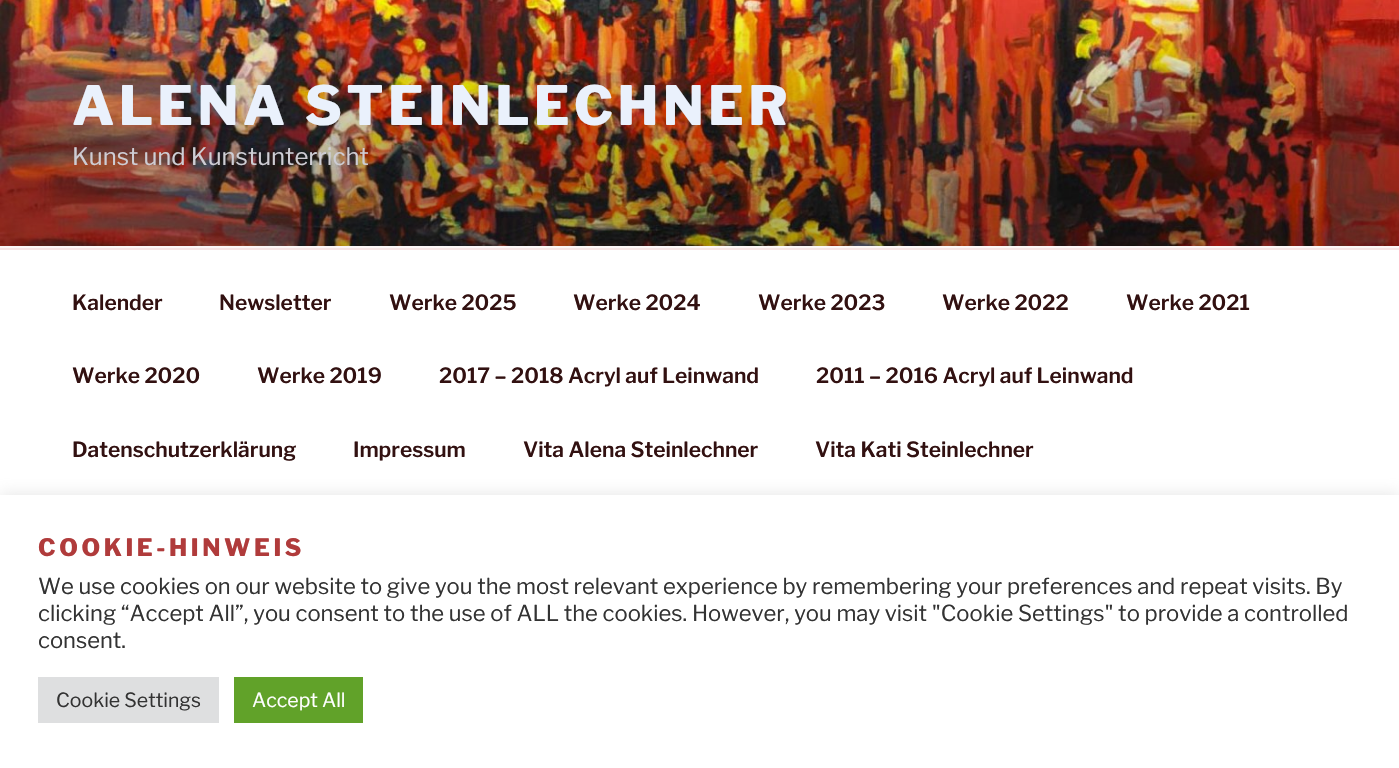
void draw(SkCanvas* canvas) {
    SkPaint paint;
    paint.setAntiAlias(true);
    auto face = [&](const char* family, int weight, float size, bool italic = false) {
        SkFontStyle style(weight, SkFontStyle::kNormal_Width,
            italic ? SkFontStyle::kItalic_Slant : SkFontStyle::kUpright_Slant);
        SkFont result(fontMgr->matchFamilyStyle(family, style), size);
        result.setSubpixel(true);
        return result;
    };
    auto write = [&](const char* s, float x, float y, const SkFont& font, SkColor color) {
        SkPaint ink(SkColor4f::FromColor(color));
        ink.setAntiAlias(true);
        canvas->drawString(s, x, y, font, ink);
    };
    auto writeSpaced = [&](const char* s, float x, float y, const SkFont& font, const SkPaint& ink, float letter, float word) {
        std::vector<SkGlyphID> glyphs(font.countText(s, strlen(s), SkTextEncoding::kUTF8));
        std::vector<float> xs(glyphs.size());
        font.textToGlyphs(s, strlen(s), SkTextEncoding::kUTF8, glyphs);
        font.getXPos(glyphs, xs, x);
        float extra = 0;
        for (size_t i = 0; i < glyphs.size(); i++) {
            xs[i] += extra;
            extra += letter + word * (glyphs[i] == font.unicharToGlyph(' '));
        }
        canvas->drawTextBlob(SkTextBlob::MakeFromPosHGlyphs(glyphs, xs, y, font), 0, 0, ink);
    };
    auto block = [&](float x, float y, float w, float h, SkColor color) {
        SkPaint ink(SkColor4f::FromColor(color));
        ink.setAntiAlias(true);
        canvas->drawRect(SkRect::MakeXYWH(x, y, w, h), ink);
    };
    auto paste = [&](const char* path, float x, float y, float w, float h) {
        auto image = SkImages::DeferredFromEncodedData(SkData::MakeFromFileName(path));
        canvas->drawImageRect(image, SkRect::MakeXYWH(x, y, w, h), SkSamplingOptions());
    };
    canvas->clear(SkColorSetRGB(252, 247, 247));
    paste("pic1.png", 0, 0, 1399, 246);
    auto kFont1 = face("Libre Franklin", 100, 54);
    paint.setColor(SkColorSetRGB(234, 241, 252));
    writeSpaced("ALENA STEINLECHNER", 72, 125, kFont1, paint, 4.3f, 0);
    auto kFont2 = face("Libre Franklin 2", 100, 24);
    write("Kunst und Kunstunterricht", 72, 165, kFont2, SkColorSetRGB(206, 205, 212));
    block(0, 250, 1399, 245, SK_ColorWHITE);
    block(0, 248, 1399, 2, SkColorSetRGB(246, 228, 228));
    auto kFont3 = face("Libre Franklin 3", 100, 21);
    write("Kalender", 72, 310, kFont3, SkColorSetRGB(50, 17, 17));
    write("Newsletter", 219, 310, kFont3, SkColorSetRGB(50, 17, 17));
    write("Werke 2025", 389, 310, kFont3, SkColorSetRGB(50, 17, 17));
    write("Werke 2024", 573, 310, kFont3, SkColorSetRGB(50, 17, 17));
    write("Werke 2023", 758, 310, kFont3, SkColorSetRGB(50, 17, 17));
    write("Werke 2022", 942, 310, kFont3, SkColorSetRGB(50, 17, 17));
    write("Werke 2021", 1126, 310, kFont3, SkColorSetRGB(50, 17, 17));
    write("Werke 2020", 72, 383, kFont3, SkColorSetRGB(50, 17, 17));
    write("Werke 2019", 257, 383, kFont3, SkColorSetRGB(50, 17, 17));
    write("2017 – 2018 Acryl auf Leinwand", 439, 383, kFont3, SkColorSetRGB(50, 17, 17));
    write("2011 – 2016 Acryl auf Leinwand", 816, 383, kFont3, SkColorSetRGB(50, 17, 17));
    write("Datenschutzerklärung", 72, 457, kFont3, SkColorSetRGB(50, 17, 17));
    write("Impressum", 353, 457, kFont3, SkColorSetRGB(50, 17, 17));
    write("Vita Alena Steinlechner", 523, 457, kFont3, SkColorSetRGB(50, 17, 17));
    write("Vita Kati Steinlechner", 815, 457, kFont3, SkColorSetRGB(50, 17, 17));
    paint.setColor(SkColorSetARGB(77, 172, 171, 171));
    paint.setMaskFilter(SkMaskFilter::MakeBlur(kNormal_SkBlurStyle, 7.5f));
    canvas->drawRect(SkRect::MakeXYWH(0, 494, 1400, 273), paint);
    paint.setMaskFilter(nullptr);
    block(0, 495, 1399, 273, SK_ColorWHITE);
    auto kFont4 = face("Libre Franklin", 100, 24);
    paint.setColor(SkColorSetRGB(176, 59, 59));
    writeSpaced("COOKIE-HINWEIS", 38, 556, kFont4, paint, 3.6f, 0);
    auto kFont5 = face("Libre Franklin 2", 100, 22);
    write("We use cookies on our website to give you the most relevant experience by remembering your preferences and repeat visits. By", 38, 594, kFont5, SkColorSetRGB(51, 51, 51));
    write("clicking “Accept All”, you consent to the use of ALL the cookies. However, you may visit \"Cookie Settings\" to provide a controlled", 38, 621, kFont5, SkColorSetRGB(51, 51, 51));
    write("consent.", 38, 648, kFont5, SkColorSetRGB(51, 51, 51));
    block(38, 677, 181, 46, SkColorSetRGB(222, 223, 224));
    auto kFont6 = face("Libre Franklin 2", 100, 19.5f);
    write("Cookie Settings", 56, 707, kFont6, SkColorSetRGB(51, 51, 51));
    block(234, 677, 129, 46, SkColorSetRGB(97, 162, 41));
    write("Accept All", 252, 707, kFont6, SK_ColorWHITE);
}
